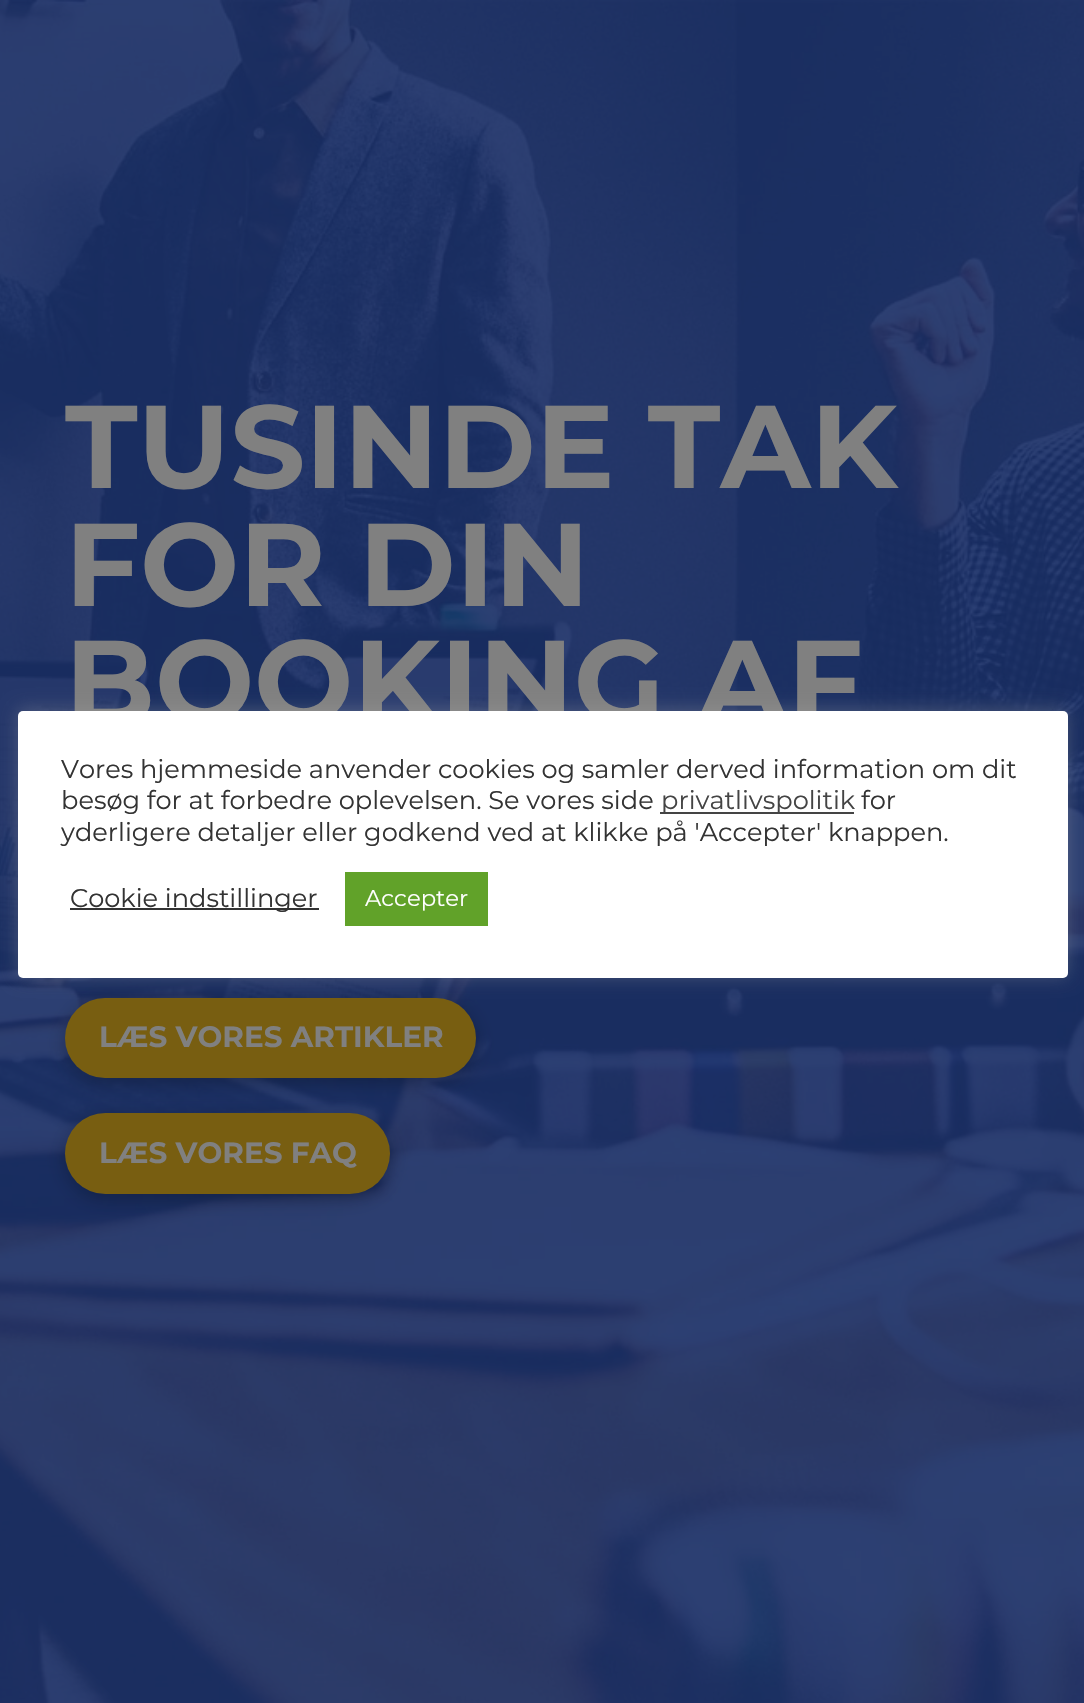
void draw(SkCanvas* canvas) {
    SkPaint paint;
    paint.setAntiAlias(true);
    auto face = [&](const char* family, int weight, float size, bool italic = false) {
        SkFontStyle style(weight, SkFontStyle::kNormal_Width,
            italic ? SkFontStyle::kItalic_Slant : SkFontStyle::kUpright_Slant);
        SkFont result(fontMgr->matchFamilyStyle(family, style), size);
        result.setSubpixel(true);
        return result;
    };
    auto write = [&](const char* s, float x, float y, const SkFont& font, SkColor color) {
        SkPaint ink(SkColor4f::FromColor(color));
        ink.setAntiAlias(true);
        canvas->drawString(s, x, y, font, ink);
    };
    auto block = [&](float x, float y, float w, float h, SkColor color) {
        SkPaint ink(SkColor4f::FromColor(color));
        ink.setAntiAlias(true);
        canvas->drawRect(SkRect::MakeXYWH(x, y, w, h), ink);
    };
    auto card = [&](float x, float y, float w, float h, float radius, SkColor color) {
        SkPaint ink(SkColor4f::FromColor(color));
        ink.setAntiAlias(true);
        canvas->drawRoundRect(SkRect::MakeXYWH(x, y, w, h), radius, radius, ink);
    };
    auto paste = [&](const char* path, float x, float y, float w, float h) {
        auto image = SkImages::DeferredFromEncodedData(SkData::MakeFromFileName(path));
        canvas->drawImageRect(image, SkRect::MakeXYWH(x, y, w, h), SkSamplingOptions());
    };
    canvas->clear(SK_ColorWHITE);
    paste("pic1.png", 0, 0, 1084, 1703);
    auto kFont1 = face("Montserrat", 700, 117.5f);
    write("TUSINDE TAK", 65, 488, kFont1, SkColorSetRGB(128, 128, 128));
    write("FOR DIN", 65, 606, kFont1, SkColorSetRGB(128, 128, 128));
    write("BOOKING AF", 65, 723, kFont1, SkColorSetRGB(128, 128, 128));
    paint.setColor(SkColorSetARGB(64, 0, 0, 0));
    paint.setMaskFilter(SkMaskFilter::MakeBlur(kNormal_SkBlurStyle, 9.5f));
    canvas->drawRoundRect(SkRect::MakeXYWH(65, 1003, 411, 80), 40, 40, paint);
    paint.setMaskFilter(nullptr);
    card(65, 998, 411, 80, 40, SkColorSetRGB(120, 94, 17));
    auto kFont2 = face("Montserrat", 700, 29.4f);
    write("LÆS VORES ARTIKLER", 99, 1047, kFont2, SkColorSetRGB(128, 128, 128));
    paint.setMaskFilter(SkMaskFilter::MakeBlur(kNormal_SkBlurStyle, 9.5f));
    canvas->drawRoundRect(SkRect::MakeXYWH(65, 1118, 325, 81), 40.5f, 40.5f, paint);
    paint.setMaskFilter(nullptr);
    card(65, 1113, 325, 81, 40.5f, SkColorSetRGB(120, 94, 17));
    write("LÆS VORES FAQ", 99, 1163, kFont2, SkColorSetRGB(128, 128, 128));
    paint.setColor(SkColorSetARGB(77, 172, 171, 171));
    paint.setMaskFilter(SkMaskFilter::MakeBlur(kNormal_SkBlurStyle, 9));
    canvas->drawRoundRect(SkRect::MakeXYWH(18, 709, 1050, 268), 5, 5, paint);
    paint.setMaskFilter(nullptr);
    card(18, 711, 1050, 267, 5, SK_ColorWHITE);
    auto kFont3 = face("Montserrat", 400, 25.65f);
    write("Vores hjemmeside anvender cookies og samler derved information om dit", 61, 778, kFont3, SkColorSetRGB(51, 51, 51));
    write("besøg for at forbedre oplevelsen. Se vores side", 61, 809, kFont3, SkColorSetRGB(51, 51, 51));
    block(660, 812, 194, 2, SkColorSetRGB(68, 68, 68));
    write("privatlivspolitik", 661, 809, kFont3, SkColorSetRGB(68, 68, 68));
    write("for", 861, 809, kFont3, SkColorSetRGB(51, 51, 51));
    write("yderligere detaljer eller godkend ved at klikke på 'Accepter' knappen.", 61, 841, kFont3, SkColorSetRGB(51, 51, 51));
    block(70, 908, 249, 2, SkColorSetRGB(51, 51, 51));
    write("Cookie indstillinger", 70, 907, kFont3, SkColorSetRGB(51, 51, 51));
    block(345, 872, 143, 54, SkColorSetRGB(97, 162, 41));
    auto kFont4 = face("Montserrat", 400, 22.75f);
    write("Accepter", 365, 906, kFont4, SK_ColorWHITE);
}
